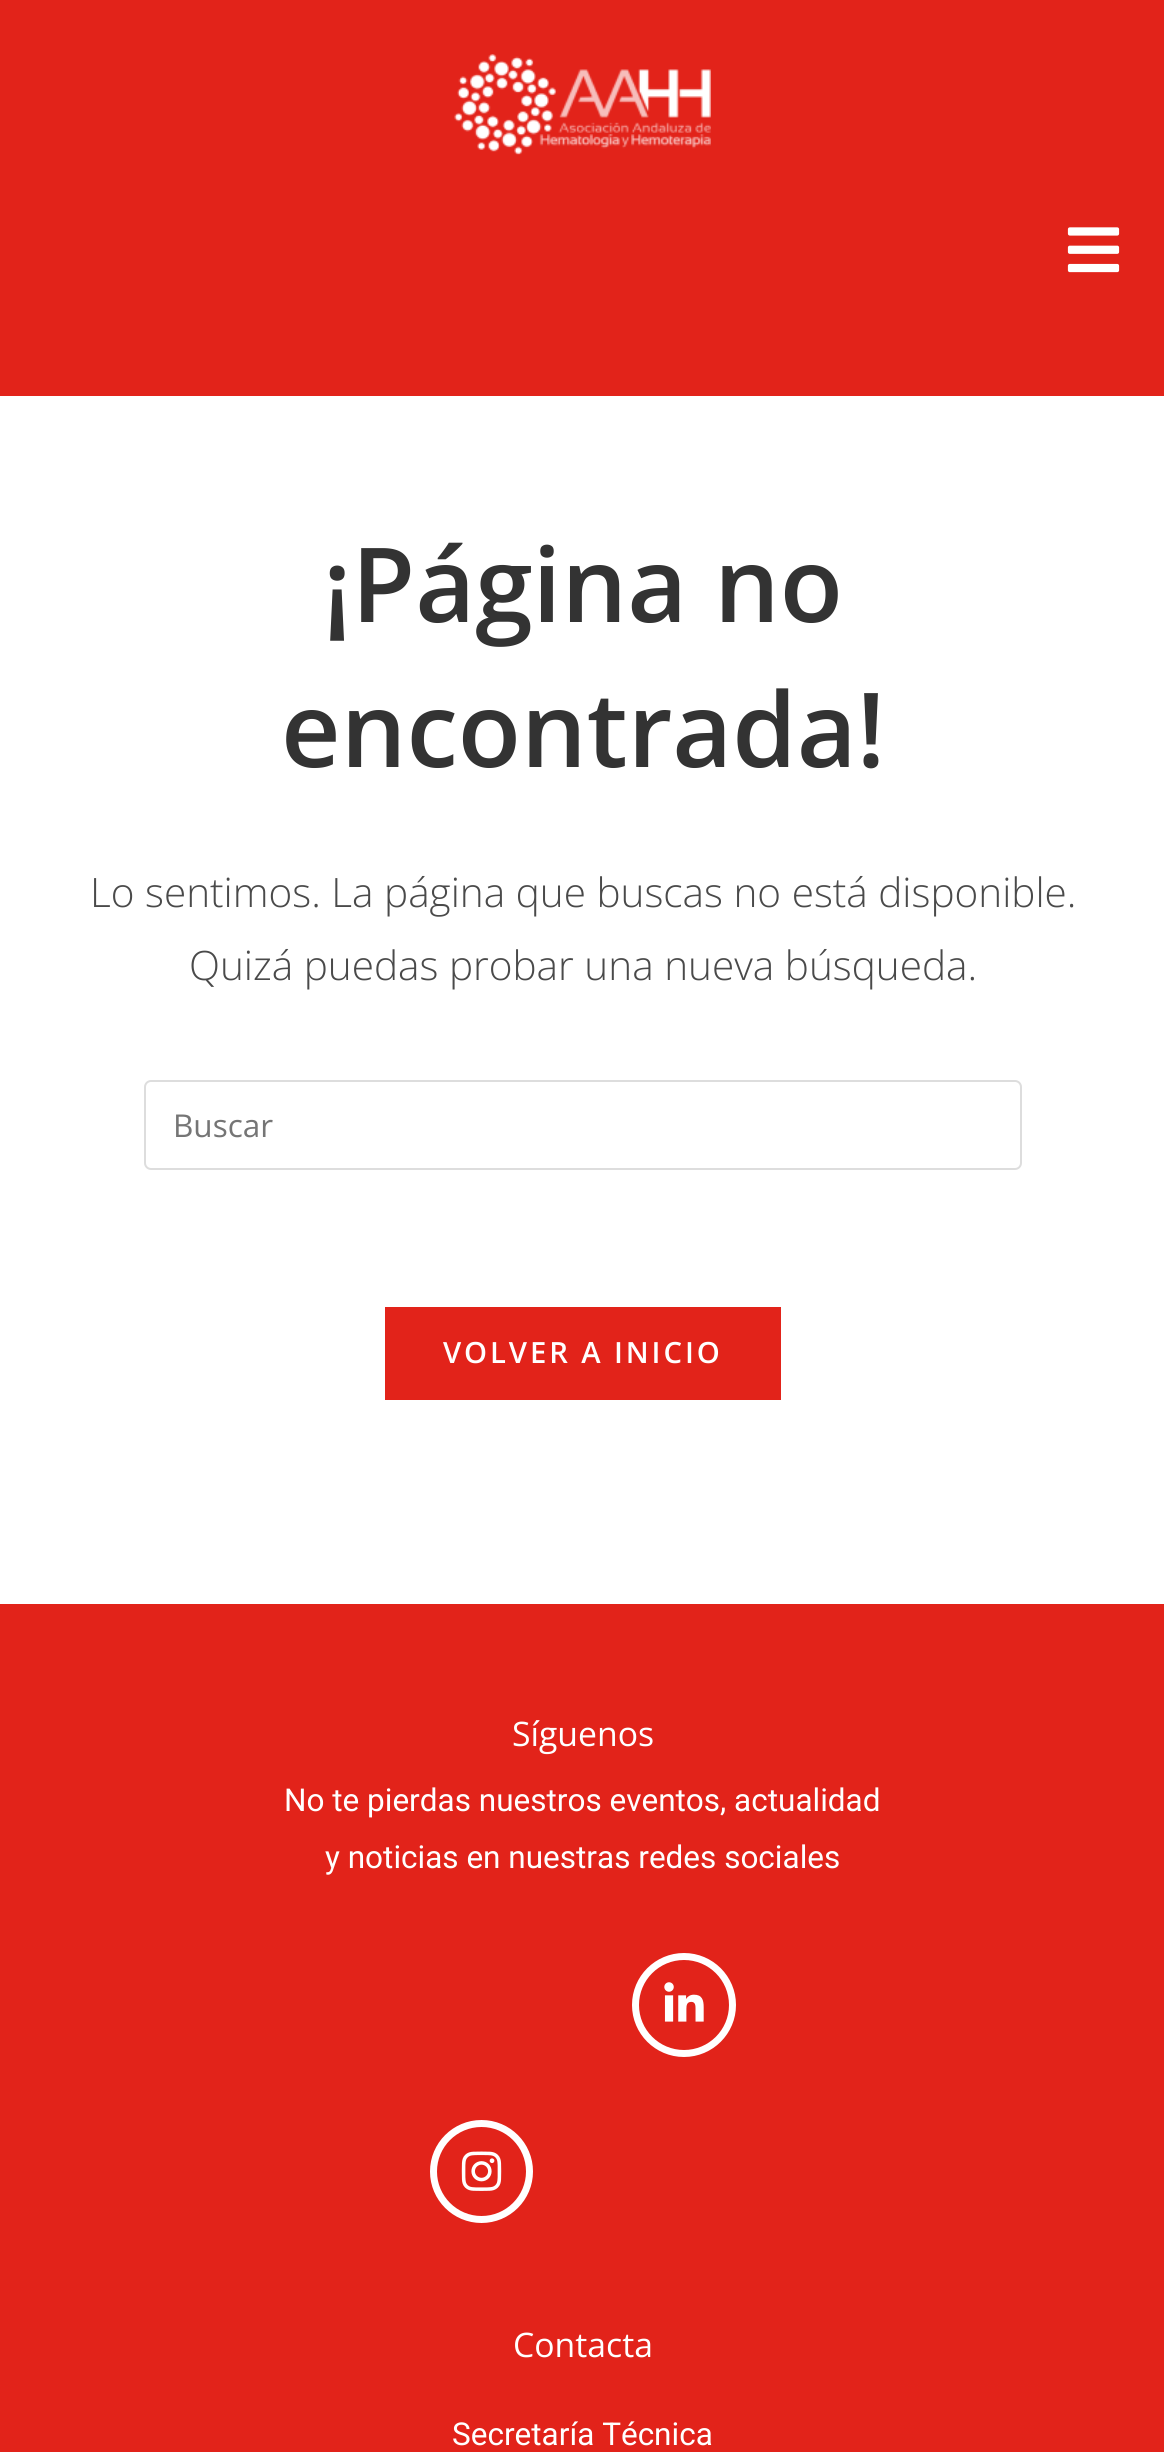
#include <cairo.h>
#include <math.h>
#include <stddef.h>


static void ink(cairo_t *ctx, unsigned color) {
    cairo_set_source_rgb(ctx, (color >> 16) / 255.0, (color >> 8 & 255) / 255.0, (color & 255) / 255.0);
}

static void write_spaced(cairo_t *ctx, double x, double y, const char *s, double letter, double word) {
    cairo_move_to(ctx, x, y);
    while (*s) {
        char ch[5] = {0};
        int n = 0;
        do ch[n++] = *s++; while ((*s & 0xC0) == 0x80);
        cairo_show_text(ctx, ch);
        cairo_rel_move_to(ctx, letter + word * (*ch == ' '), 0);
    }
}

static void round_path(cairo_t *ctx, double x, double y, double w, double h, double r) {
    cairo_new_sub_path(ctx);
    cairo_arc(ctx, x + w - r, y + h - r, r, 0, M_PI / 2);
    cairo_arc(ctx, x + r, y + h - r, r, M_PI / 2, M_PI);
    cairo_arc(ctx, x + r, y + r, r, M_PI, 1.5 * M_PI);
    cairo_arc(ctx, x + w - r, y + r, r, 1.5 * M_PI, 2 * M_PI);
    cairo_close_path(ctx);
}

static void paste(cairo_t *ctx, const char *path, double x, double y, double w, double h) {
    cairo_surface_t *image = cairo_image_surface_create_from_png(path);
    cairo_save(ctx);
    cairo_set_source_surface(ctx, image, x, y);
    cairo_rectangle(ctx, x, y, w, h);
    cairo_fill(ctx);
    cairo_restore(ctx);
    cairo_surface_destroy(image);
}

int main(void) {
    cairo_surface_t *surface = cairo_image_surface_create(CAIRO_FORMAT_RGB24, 1164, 2452);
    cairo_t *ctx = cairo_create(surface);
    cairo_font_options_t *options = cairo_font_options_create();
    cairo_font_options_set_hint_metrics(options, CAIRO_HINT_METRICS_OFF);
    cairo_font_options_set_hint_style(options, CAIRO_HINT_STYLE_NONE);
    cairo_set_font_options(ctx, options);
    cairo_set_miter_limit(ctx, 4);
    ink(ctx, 0xFFFFFF);
    cairo_paint(ctx);
    ink(ctx, 0xE2231A);
    cairo_rectangle(ctx, 0, 0, 1164, 396);
    cairo_fill(ctx);
    paste(ctx, "media/1.png", 454, 54, 257, 101);
    paste(ctx, "media/2.png", 1067, 227, 53, 46);
    cairo_select_font_face(ctx, "Open Sans SemiBold", CAIRO_FONT_SLANT_NORMAL, CAIRO_FONT_WEIGHT_NORMAL);
    cairo_set_font_size(ctx, 103.5);
    ink(ctx, 0x333333);
    cairo_move_to(ctx, 323, 622);
    cairo_show_text(ctx, "¡Página no");
    cairo_move_to(ctx, 281, 767);
    cairo_show_text(ctx, "encontrada!");
    cairo_select_font_face(ctx, "Open Sans Light", CAIRO_FONT_SLANT_NORMAL, CAIRO_FONT_WEIGHT_NORMAL);
    cairo_set_font_size(ctx, 40.5);
    ink(ctx, 0x4A4A4A);
    cairo_move_to(ctx, 90, 907);
    cairo_show_text(ctx, "Lo sentimos. La página que buscas no está disponible.");
    cairo_move_to(ctx, 189, 980);
    cairo_show_text(ctx, "Quizá puedas probar una nueva búsqueda.");
    round_path(ctx, 145, 1081, 876, 88, 6);
    ink(ctx, 0xDDDDDD);
    cairo_stroke(ctx);
    cairo_select_font_face(ctx, "Open Sans", CAIRO_FONT_SLANT_NORMAL, CAIRO_FONT_WEIGHT_NORMAL);
    cairo_set_font_size(ctx, 31.5);
    ink(ctx, 0x757575);
    cairo_move_to(ctx, 173, 1137);
    cairo_show_text(ctx, "Buscar");
    ink(ctx, 0xE2231A);
    cairo_rectangle(ctx, 385, 1307, 396, 93);
    cairo_fill(ctx);
    cairo_select_font_face(ctx, "Open Sans SemiBold", CAIRO_FONT_SLANT_NORMAL, CAIRO_FONT_WEIGHT_NORMAL);
    cairo_set_font_size(ctx, 29.25);
    ink(ctx, 0xFFFFFF);
    write_spaced(ctx, 443, 1363, "VOLVER A INICIO", 2.9, 0);
    ink(ctx, 0xE2231A);
    cairo_rectangle(ctx, 0, 1604, 1164, 848);
    cairo_fill(ctx);
    cairo_select_font_face(ctx, "Open Sans", CAIRO_FONT_SLANT_NORMAL, CAIRO_FONT_WEIGHT_NORMAL);
    cairo_set_font_size(ctx, 33.75);
    ink(ctx, 0xFFFFFF);
    cairo_move_to(ctx, 512, 1746);
    cairo_show_text(ctx, "Síguenos");
    cairo_select_font_face(ctx, "Roboto", CAIRO_FONT_SLANT_NORMAL, CAIRO_FONT_WEIGHT_NORMAL);
    cairo_set_font_size(ctx, 31.5);
    cairo_move_to(ctx, 284, 1811);
    cairo_show_text(ctx, "No te pierdas nuestros eventos, actualidad");
    cairo_move_to(ctx, 325, 1868);
    cairo_show_text(ctx, "y noticias en nuestras redes sociales");
    cairo_new_path(ctx);
    cairo_arc(ctx, 684, 2005, 48.5, 0, 2 * M_PI);
    cairo_set_line_width(ctx, 7);
    cairo_stroke(ctx);
    paste(ctx, "media/3.png", 664, 1982, 40, 40);
    cairo_arc(ctx, 481.5, 2171.5, 48, 0, 2 * M_PI);
    cairo_stroke(ctx);
    paste(ctx, "media/4.png", 461, 2151, 41, 40);
    cairo_select_font_face(ctx, "Open Sans", CAIRO_FONT_SLANT_NORMAL, CAIRO_FONT_WEIGHT_NORMAL);
    cairo_set_font_size(ctx, 33.75);
    cairo_move_to(ctx, 513, 2357);
    cairo_show_text(ctx, "Contacta");
    cairo_select_font_face(ctx, "Roboto", CAIRO_FONT_SLANT_NORMAL, CAIRO_FONT_WEIGHT_NORMAL);
    cairo_set_font_size(ctx, 31.5);
    cairo_move_to(ctx, 452, 2445);
    cairo_show_text(ctx, "Secretaría Técnica");
    cairo_surface_write_to_png(surface, "image.png");
    cairo_font_options_destroy(options);
    cairo_destroy(ctx);
    cairo_surface_destroy(surface);
    return 0;
}
